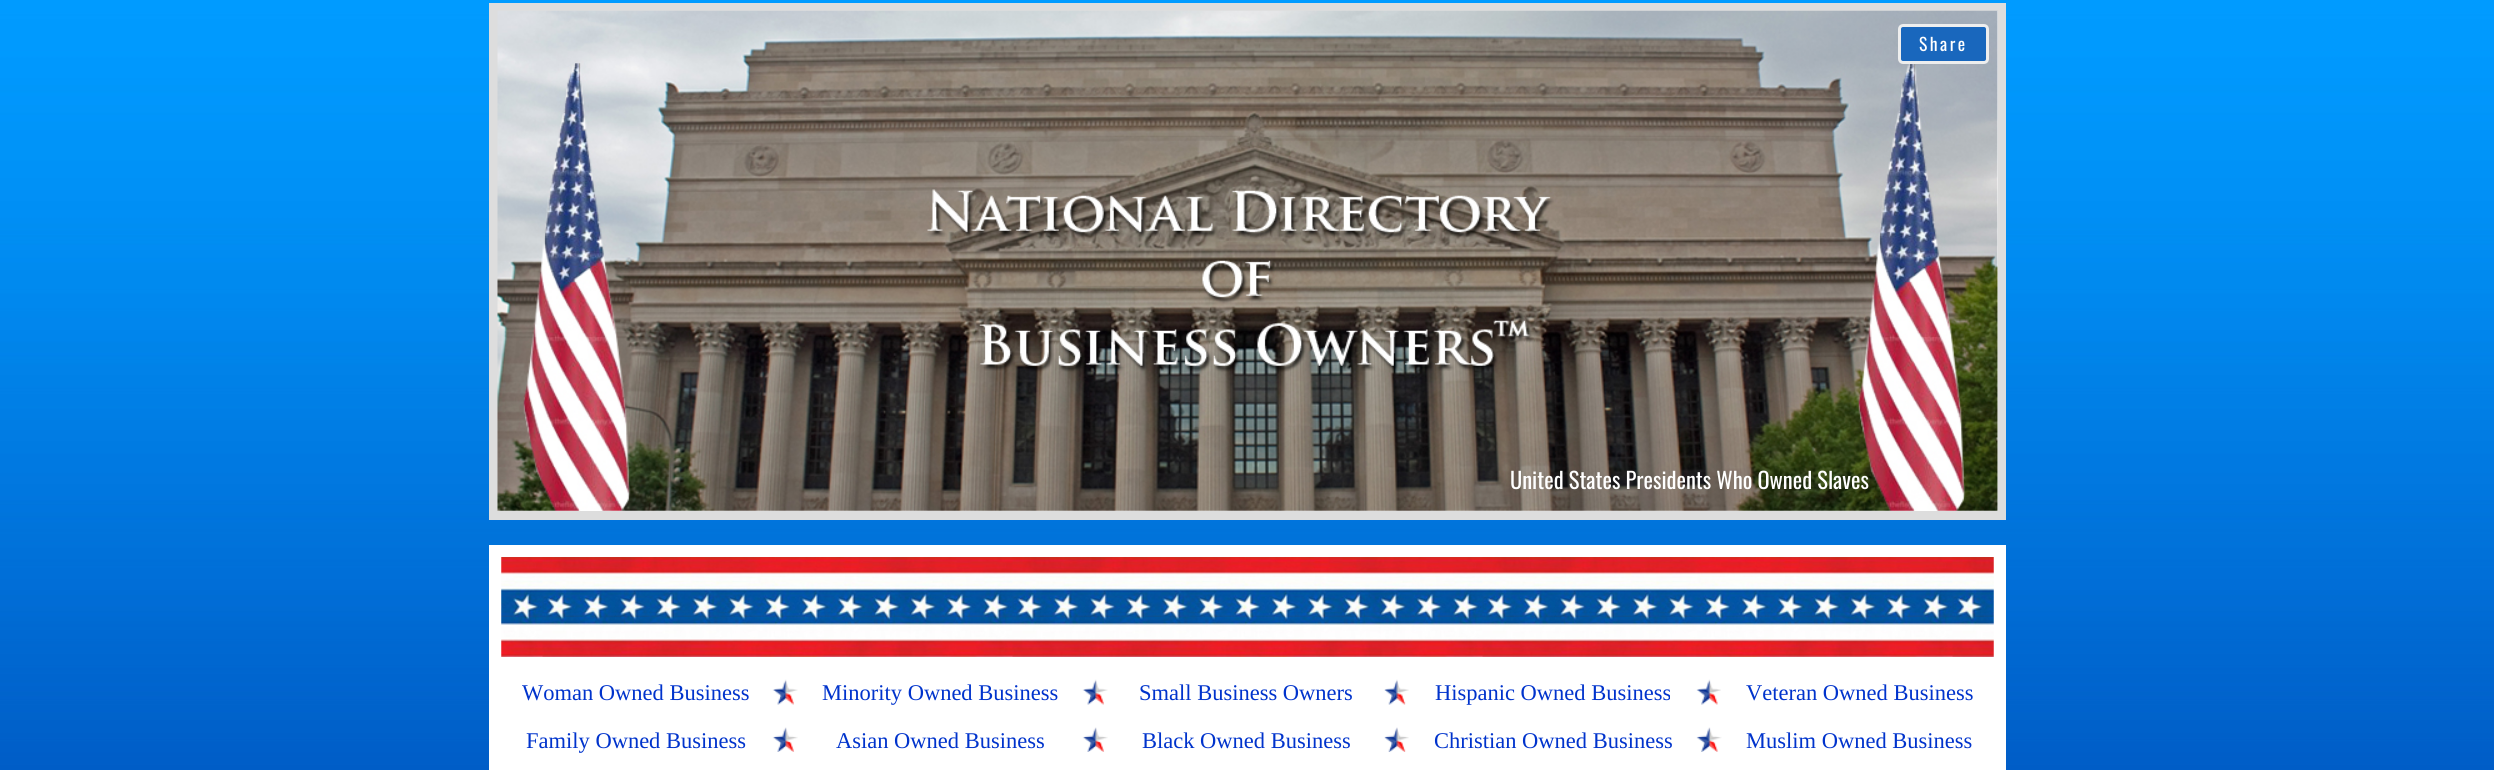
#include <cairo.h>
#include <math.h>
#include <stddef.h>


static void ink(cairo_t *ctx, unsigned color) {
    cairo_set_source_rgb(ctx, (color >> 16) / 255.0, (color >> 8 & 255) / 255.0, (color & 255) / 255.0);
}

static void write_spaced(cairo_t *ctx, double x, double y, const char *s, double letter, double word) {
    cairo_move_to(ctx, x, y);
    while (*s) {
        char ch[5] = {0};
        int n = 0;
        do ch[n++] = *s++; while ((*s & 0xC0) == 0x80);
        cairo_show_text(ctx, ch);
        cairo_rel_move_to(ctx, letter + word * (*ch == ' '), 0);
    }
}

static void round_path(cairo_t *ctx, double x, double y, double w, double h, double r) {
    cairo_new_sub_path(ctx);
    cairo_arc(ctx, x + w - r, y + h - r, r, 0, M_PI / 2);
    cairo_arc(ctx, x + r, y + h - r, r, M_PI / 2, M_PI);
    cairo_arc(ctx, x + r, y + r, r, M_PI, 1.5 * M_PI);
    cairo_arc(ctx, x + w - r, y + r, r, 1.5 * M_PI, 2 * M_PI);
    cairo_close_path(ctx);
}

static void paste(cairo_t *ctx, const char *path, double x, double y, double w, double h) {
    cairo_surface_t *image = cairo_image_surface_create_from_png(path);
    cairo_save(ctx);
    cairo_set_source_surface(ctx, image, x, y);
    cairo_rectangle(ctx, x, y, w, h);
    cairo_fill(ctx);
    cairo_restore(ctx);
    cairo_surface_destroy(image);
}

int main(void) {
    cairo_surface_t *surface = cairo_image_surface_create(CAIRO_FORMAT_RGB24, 2494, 770);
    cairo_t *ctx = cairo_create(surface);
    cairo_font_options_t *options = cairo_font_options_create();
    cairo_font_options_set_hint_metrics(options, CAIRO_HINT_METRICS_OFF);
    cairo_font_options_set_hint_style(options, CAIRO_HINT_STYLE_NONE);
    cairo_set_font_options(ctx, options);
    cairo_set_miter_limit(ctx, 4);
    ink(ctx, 0xFFFFFF);
    cairo_paint(ctx);
    paste(ctx, "media/1.png", 0, 0, 2494, 770);
    ink(ctx, 0xDDDDDD);
    cairo_rectangle(ctx, 489, 3, 1517, 517);
    cairo_fill(ctx);
    ink(ctx, 0xFFFFFF);
    cairo_rectangle(ctx, 498, 11, 1500, 500);
    cairo_fill(ctx);
    paste(ctx, "media/2.png", 497, 10, 1501, 501);
    ink(ctx, 0x1967BD);
    round_path(ctx, 1899.5, 25.5, 88, 37, 3.5);
    cairo_fill_preserve(ctx);
    ink(ctx, 0xEEEEEE);
    cairo_set_line_width(ctx, 3);
    cairo_stroke(ctx);
    cairo_select_font_face(ctx, "Oswald", CAIRO_FONT_SLANT_NORMAL, CAIRO_FONT_WEIGHT_NORMAL);
    cairo_set_font_size(ctx, 17.5);
    ink(ctx, 0xFFFFFF);
    write_spaced(ctx, 1919, 51, "Share", 2.5, 0);
    cairo_set_font_size(ctx, 22.5);
    cairo_move_to(ctx, 1510, 489);
    cairo_show_text(ctx, "United States Presidents Who Owned Slaves");
    cairo_rectangle(ctx, 489, 545, 1517, 225);
    cairo_fill(ctx);
    paste(ctx, "media/3.png", 501, 557, 1493, 100);
    cairo_select_font_face(ctx, "Liberation Serif", CAIRO_FONT_SLANT_NORMAL, CAIRO_FONT_WEIGHT_NORMAL);
    ink(ctx, 0x0033CC);
    cairo_move_to(ctx, 522, 700);
    cairo_show_text(ctx, "Woman Owned Business");
    paste(ctx, "media/4.png", 772, 679, 26, 26);
    cairo_move_to(ctx, 822, 700);
    cairo_show_text(ctx, "Minority Owned Business");
    paste(ctx, "media/4.png", 1082, 679, 26, 26);
    cairo_move_to(ctx, 1139, 700);
    cairo_show_text(ctx, "Small Business Owners");
    paste(ctx, "media/5.png", 1384, 679, 25, 26);
    cairo_move_to(ctx, 1435, 700);
    cairo_show_text(ctx, "Hispanic Owned Business");
    paste(ctx, "media/6.png", 1696, 679, 25, 26);
    cairo_move_to(ctx, 1746, 700);
    cairo_show_text(ctx, "Veteran Owned Business");
    cairo_move_to(ctx, 526, 748);
    cairo_show_text(ctx, "Family Owned Business");
    paste(ctx, "media/7.png", 772, 727, 26, 25);
    cairo_move_to(ctx, 836, 748);
    cairo_show_text(ctx, "Asian Owned Business");
    paste(ctx, "media/7.png", 1082, 727, 26, 25);
    cairo_move_to(ctx, 1142, 748);
    cairo_show_text(ctx, "Black Owned Business");
    paste(ctx, "media/8.png", 1384, 727, 25, 25);
    cairo_move_to(ctx, 1434, 748);
    cairo_show_text(ctx, "Christian Owned Business");
    paste(ctx, "media/9.png", 1696, 727, 26, 25);
    cairo_move_to(ctx, 1746, 748);
    cairo_show_text(ctx, "Muslim Owned Business");
    cairo_surface_write_to_png(surface, "image.png");
    cairo_font_options_destroy(options);
    cairo_destroy(ctx);
    cairo_surface_destroy(surface);
    return 0;
}
